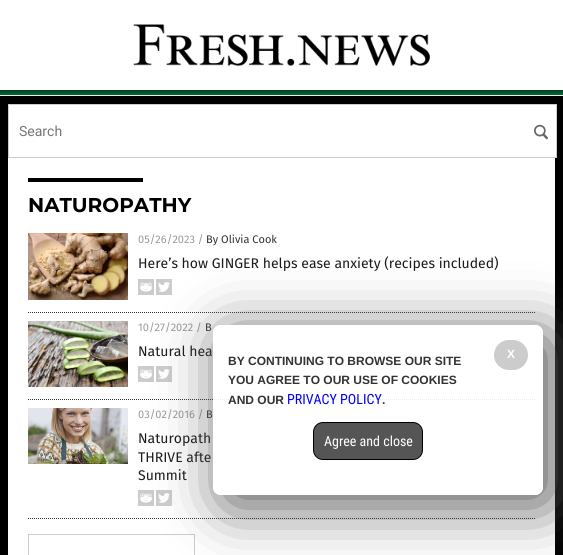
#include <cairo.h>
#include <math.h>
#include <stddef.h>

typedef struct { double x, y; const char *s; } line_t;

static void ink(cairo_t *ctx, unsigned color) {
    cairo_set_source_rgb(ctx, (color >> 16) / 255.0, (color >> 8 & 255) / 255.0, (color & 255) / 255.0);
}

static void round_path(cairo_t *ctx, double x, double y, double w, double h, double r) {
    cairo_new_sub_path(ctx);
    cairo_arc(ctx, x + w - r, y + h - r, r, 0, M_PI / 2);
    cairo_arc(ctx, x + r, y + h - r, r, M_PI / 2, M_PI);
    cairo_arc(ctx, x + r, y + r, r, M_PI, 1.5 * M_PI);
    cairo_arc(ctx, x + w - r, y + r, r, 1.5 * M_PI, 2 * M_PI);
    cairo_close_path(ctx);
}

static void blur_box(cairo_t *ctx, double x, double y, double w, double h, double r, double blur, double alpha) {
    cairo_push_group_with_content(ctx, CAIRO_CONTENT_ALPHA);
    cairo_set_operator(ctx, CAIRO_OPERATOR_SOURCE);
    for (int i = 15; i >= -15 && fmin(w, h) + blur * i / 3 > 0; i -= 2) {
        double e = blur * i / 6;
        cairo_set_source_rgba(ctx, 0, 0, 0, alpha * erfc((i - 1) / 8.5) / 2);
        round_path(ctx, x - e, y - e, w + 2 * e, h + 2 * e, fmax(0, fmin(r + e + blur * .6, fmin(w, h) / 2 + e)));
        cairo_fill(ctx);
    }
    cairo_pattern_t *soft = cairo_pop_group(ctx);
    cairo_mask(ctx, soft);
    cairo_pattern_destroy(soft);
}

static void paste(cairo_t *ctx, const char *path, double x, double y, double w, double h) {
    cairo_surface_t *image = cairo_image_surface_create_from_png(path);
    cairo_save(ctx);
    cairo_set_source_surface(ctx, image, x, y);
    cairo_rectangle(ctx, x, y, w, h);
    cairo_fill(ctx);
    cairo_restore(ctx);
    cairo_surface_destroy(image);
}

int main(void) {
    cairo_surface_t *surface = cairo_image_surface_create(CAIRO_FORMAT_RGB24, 563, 555);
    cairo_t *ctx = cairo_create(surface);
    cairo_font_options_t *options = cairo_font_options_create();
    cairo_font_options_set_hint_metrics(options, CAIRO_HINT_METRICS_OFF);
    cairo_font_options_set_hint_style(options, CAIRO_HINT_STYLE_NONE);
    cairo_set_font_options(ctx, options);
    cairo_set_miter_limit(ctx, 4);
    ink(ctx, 0x008143);
    cairo_paint(ctx);
    ink(ctx, 0x000000);
    blur_box(ctx, -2, -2, 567, 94, 0, 5, 0.75);
    ink(ctx, 0xFFFFFF);
    cairo_rectangle(ctx, 0, 0, 563, 90);
    cairo_fill(ctx);
    paste(ctx, "media/1.png", 133, 24, 297, 43);
    ink(ctx, 0x000000);
    cairo_rectangle(ctx, 0, 96, 563, 459);
    cairo_fill(ctx);
    ink(ctx, 0xECECEC);
    cairo_rectangle(ctx, 0, 95, 563, 1);
    cairo_fill(ctx);
    ink(ctx, 0xFFFFFF);
    cairo_rectangle(ctx, 8.5, 104.5, 548, 53);
    cairo_fill_preserve(ctx);
    ink(ctx, 0xCCCCCC);
    cairo_set_line_width(ctx, 1);
    cairo_stroke(ctx);
    cairo_select_font_face(ctx, "Roboto", CAIRO_FONT_SLANT_NORMAL, CAIRO_FONT_WEIGHT_NORMAL);
    cairo_set_font_size(ctx, 14);
    ink(ctx, 0x757575);
    cairo_move_to(ctx, 19, 136);
    cairo_show_text(ctx, "Search");
    paste(ctx, "media/2.png", 534, 124, 14, 16);
    ink(ctx, 0xFFFFFF);
    cairo_rectangle(ctx, 8, 158, 547, 397);
    cairo_fill(ctx);
    ink(ctx, 0x000000);
    cairo_rectangle(ctx, 28, 178, 115, 4);
    cairo_fill(ctx);
    cairo_select_font_face(ctx, "Montserrat", CAIRO_FONT_SLANT_NORMAL, CAIRO_FONT_WEIGHT_BOLD);
    cairo_set_font_size(ctx, 20);
    cairo_move_to(ctx, 28, 212);
    cairo_show_text(ctx, "NATUROPATHY");
    cairo_new_path(ctx);
    cairo_move_to(ctx, 28, 312.5);
    cairo_line_to(ctx, 535, 312.5);
    ink(ctx, 0x343434);
    cairo_set_dash(ctx, (double[]){1, 1}, 2, 0);
    cairo_stroke(ctx);
    paste(ctx, "media/3.png", 28, 233, 100, 67);
    cairo_select_font_face(ctx, "Fira Sans", CAIRO_FONT_SLANT_NORMAL, CAIRO_FONT_WEIGHT_NORMAL);
    cairo_set_font_size(ctx, 11);
    ink(ctx, 0x999999);
    cairo_move_to(ctx, 138, 243);
    cairo_show_text(ctx, "05/26/2023 /");
    ink(ctx, 0x333333);
    cairo_move_to(ctx, 206, 243);
    cairo_show_text(ctx, "By Olivia Cook");
    cairo_set_font_size(ctx, 14);
    ink(ctx, 0x1A1A1A);
    cairo_move_to(ctx, 138, 268);
    cairo_show_text(ctx, "Here’s how GINGER helps ease anxiety (recipes included)");
    paste(ctx, "media/4.png", 138, 279, 16, 16);
    paste(ctx, "media/5.png", 156, 279, 16, 16);
    cairo_new_path(ctx);
    cairo_move_to(ctx, 28, 399.5);
    cairo_line_to(ctx, 535, 399.5);
    ink(ctx, 0x343434);
    cairo_stroke(ctx);
    paste(ctx, "media/6.png", 28, 321, 100, 66);
    cairo_set_font_size(ctx, 11);
    ink(ctx, 0x999999);
    cairo_move_to(ctx, 138, 331);
    cairo_show_text(ctx, "10/27/2022 /");
    ink(ctx, 0x333333);
    cairo_move_to(ctx, 205, 331);
    cairo_show_text(ctx, "B");
    cairo_set_font_size(ctx, 14);
    ink(ctx, 0x1A1A1A);
    cairo_move_to(ctx, 138, 356);
    cairo_show_text(ctx, "Natural hea");
    paste(ctx, "media/4.png", 138, 366, 16, 16);
    paste(ctx, "media/5.png", 156, 366, 16, 16);
    cairo_new_path(ctx);
    cairo_move_to(ctx, 28, 518.5);
    cairo_line_to(ctx, 535, 518.5);
    ink(ctx, 0x343434);
    cairo_stroke(ctx);
    paste(ctx, "media/7.png", 28, 408, 100, 56);
    cairo_set_font_size(ctx, 11);
    ink(ctx, 0x999999);
    cairo_move_to(ctx, 138, 418);
    cairo_show_text(ctx, "03/02/2016 /");
    ink(ctx, 0x333333);
    cairo_move_to(ctx, 206, 418);
    cairo_show_text(ctx, "B");
    cairo_set_font_size(ctx, 14);
    ink(ctx, 0x1A1A1A);
    {
        static const line_t items[] = {
            {138, 443, "Naturopath"},
            {138, 462, "THRIVE afte"},
            {138, 480, "Summit"},
        };
        for (size_t i = 0; i < sizeof items / sizeof *items; i++) {
            cairo_move_to(ctx, items[i].x, items[i].y);
            cairo_show_text(ctx, items[i].s);
        }
    }
    paste(ctx, "media/4.png", 138, 490, 16, 16);
    paste(ctx, "media/5.png", 156, 490, 16, 16);
    cairo_rectangle(ctx, 28.5, 534.5, 166, 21);
    ink(ctx, 0xCCCCCC);
    cairo_set_dash(ctx, NULL, 0, 0);
    cairo_stroke(ctx);
    cairo_save(ctx);
    cairo_set_fill_rule(ctx, CAIRO_FILL_RULE_EVEN_ODD);
    cairo_new_path(ctx);
    cairo_move_to(ctx, 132, 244);
    cairo_line_to(ctx, 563, 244);
    cairo_line_to(ctx, 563, 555);
    cairo_line_to(ctx, 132, 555);
    cairo_close_path(ctx);
    cairo_move_to(ctx, 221, 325);
    cairo_line_to(ctx, 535, 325);
    cairo_curve_to(ctx, 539.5, 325, 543, 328.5, 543, 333);
    cairo_line_to(ctx, 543, 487);
    cairo_curve_to(ctx, 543, 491.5, 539.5, 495, 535, 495);
    cairo_line_to(ctx, 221, 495);
    cairo_curve_to(ctx, 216.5, 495, 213, 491.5, 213, 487);
    cairo_line_to(ctx, 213, 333);
    cairo_curve_to(ctx, 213, 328.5, 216.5, 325, 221, 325);
    cairo_close_path(ctx);
    cairo_clip(ctx);
    ink(ctx, 0x555555);
    blur_box(ctx, 223, 335, 330, 170, 8, 30, 1);
    cairo_restore(ctx);
    cairo_set_source_rgba(ctx, 1, 1, 1, 0.9);
    round_path(ctx, 213, 325, 330, 170, 8);
    cairo_fill(ctx);
    ink(ctx, 0xCCCCCC);
    round_path(ctx, 494, 340, 34, 30, 15);
    cairo_fill(ctx);
    cairo_select_font_face(ctx, "Liberation Sans", CAIRO_FONT_SLANT_NORMAL, CAIRO_FONT_WEIGHT_BOLD);
    cairo_set_font_size(ctx, 12);
    ink(ctx, 0xFFFFFF);
    cairo_move_to(ctx, 507, 358);
    cairo_show_text(ctx, "X");
    ink(ctx, 0x333333);
    {
        static const line_t items[] = {
            {228, 365, "BY CONTINUING TO BROWSE OUR SITE"},
            {228, 384, "YOU AGREE TO OUR USE OF COOKIES"},
            {228, 404, "AND OUR"},
        };
        for (size_t i = 0; i < sizeof items / sizeof *items; i++) {
            cairo_move_to(ctx, items[i].x, items[i].y);
            cairo_show_text(ctx, items[i].s);
        }
    }
    cairo_select_font_face(ctx, "Roboto Condensed", CAIRO_FONT_SLANT_NORMAL, CAIRO_FONT_WEIGHT_NORMAL);
    cairo_set_font_size(ctx, 14);
    ink(ctx, 0x0000FF);
    cairo_move_to(ctx, 287, 404);
    cairo_show_text(ctx, "PRIVACY POLICY");
    cairo_select_font_face(ctx, "Liberation Sans", CAIRO_FONT_SLANT_NORMAL, CAIRO_FONT_WEIGHT_BOLD);
    cairo_set_font_size(ctx, 12);
    ink(ctx, 0x333333);
    cairo_move_to(ctx, 382, 404);
    cairo_show_text(ctx, ".");
    ink(ctx, 0x555555);
    round_path(ctx, 313.5, 422.5, 109, 37, 9.5);
    cairo_fill_preserve(ctx);
    ink(ctx, 0x000000);
    cairo_stroke(ctx);
    cairo_select_font_face(ctx, "Roboto Condensed", CAIRO_FONT_SLANT_NORMAL, CAIRO_FONT_WEIGHT_NORMAL);
    cairo_set_font_size(ctx, 14);
    ink(ctx, 0xFFFFFF);
    cairo_move_to(ctx, 324, 446);
    cairo_show_text(ctx, "Agree and close");
    cairo_surface_write_to_png(surface, "image.png");
    cairo_font_options_destroy(options);
    cairo_destroy(ctx);
    cairo_surface_destroy(surface);
    return 0;
}
